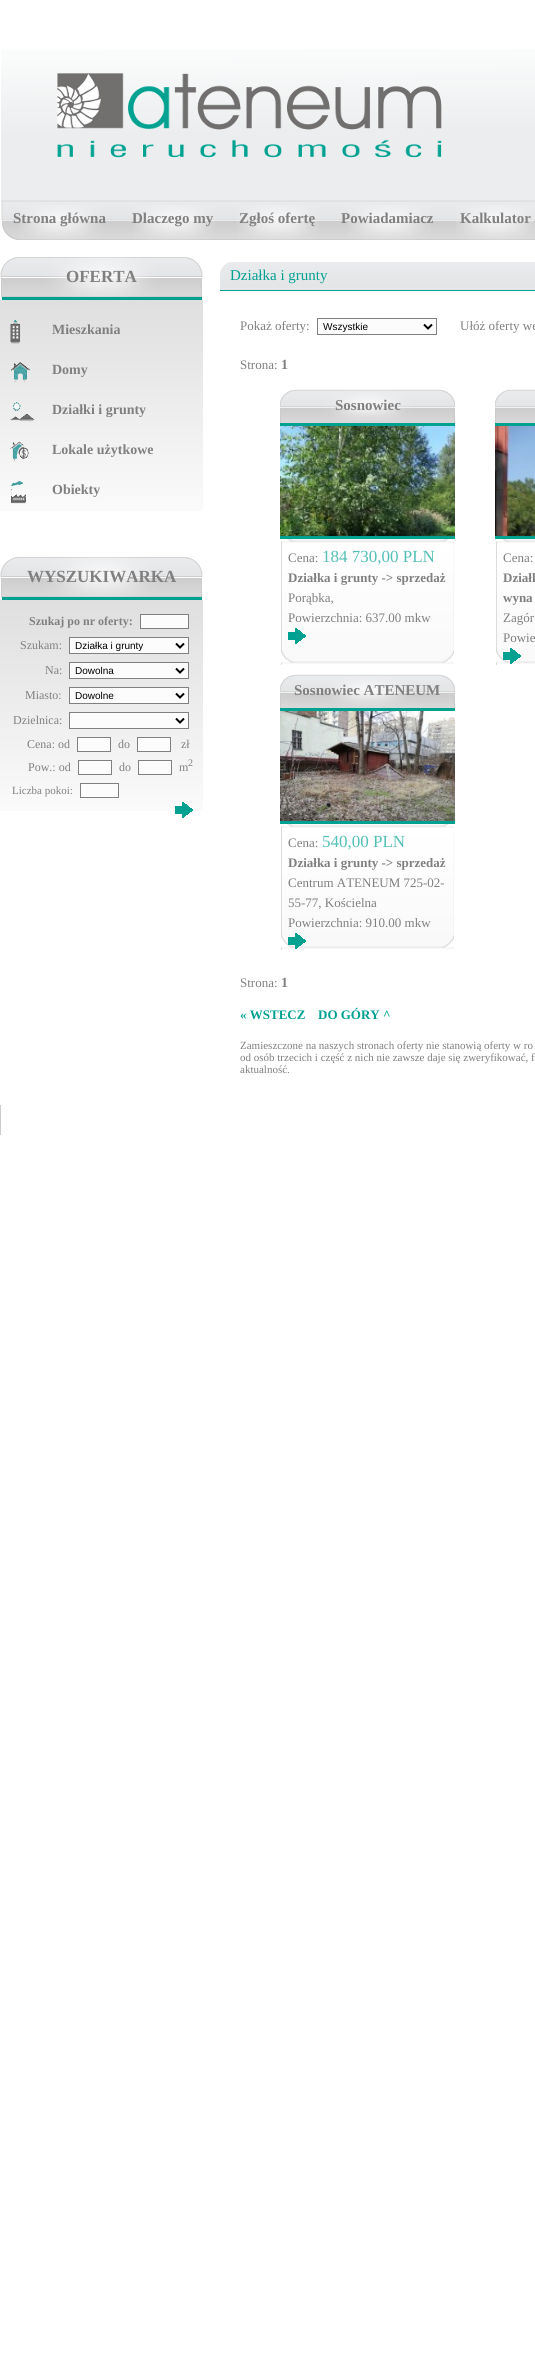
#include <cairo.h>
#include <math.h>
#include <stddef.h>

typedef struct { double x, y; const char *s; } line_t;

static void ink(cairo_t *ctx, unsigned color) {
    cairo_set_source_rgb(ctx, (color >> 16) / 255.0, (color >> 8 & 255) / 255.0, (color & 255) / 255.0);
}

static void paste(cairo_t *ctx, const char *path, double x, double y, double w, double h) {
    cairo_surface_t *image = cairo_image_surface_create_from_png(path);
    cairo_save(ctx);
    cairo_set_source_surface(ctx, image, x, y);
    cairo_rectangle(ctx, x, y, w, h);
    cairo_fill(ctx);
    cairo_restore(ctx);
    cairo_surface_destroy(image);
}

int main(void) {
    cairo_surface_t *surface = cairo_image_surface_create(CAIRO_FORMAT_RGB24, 535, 2359);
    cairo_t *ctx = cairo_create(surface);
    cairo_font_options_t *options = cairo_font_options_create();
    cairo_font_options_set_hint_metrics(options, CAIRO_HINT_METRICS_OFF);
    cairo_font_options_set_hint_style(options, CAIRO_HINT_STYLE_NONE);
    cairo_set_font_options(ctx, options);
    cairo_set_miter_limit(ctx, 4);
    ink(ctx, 0xFFFFFF);
    cairo_paint(ctx);
    paste(ctx, "media/1.png", 1, 49, 534, 191);
    paste(ctx, "media/2.png", 57, 73, 385, 85);
    paste(ctx, "media/3.png", 19, 205, 82, 35);
    cairo_select_font_face(ctx, "Liberation Serif", CAIRO_FONT_SLANT_NORMAL, CAIRO_FONT_WEIGHT_BOLD);
    cairo_set_font_size(ctx, 15);
    ink(ctx, 0x808080);
    cairo_move_to(ctx, 13, 223);
    cairo_show_text(ctx, "Strona główna");
    paste(ctx, "media/4.png", 133, 205, 82, 35);
    cairo_move_to(ctx, 132, 223);
    cairo_show_text(ctx, "Dlaczego my");
    paste(ctx, "media/4.png", 237, 205, 82, 35);
    cairo_move_to(ctx, 239, 223);
    cairo_show_text(ctx, "Zgłoś ofertę");
    paste(ctx, "media/4.png", 348, 205, 82, 35);
    cairo_move_to(ctx, 341, 223);
    cairo_show_text(ctx, "Powiadamiacz");
    paste(ctx, "media/5.png", 456, 205, 79, 35);
    cairo_move_to(ctx, 460, 223);
    cairo_show_text(ctx, "Kalkulator");
    paste(ctx, "media/6.png", 0, 257, 203, 43);
    cairo_set_font_size(ctx, 17);
    cairo_move_to(ctx, 66, 282);
    cairo_show_text(ctx, "OFERTA");
    paste(ctx, "media/7.png", 0, 300, 203, 211);
    paste(ctx, "media/8.png", 10, 319, 11, 25);
    cairo_set_font_size(ctx, 14);
    cairo_move_to(ctx, 52, 334);
    cairo_show_text(ctx, "Mieszkania");
    paste(ctx, "media/9.png", 11, 362, 19, 21);
    cairo_move_to(ctx, 52, 374);
    cairo_show_text(ctx, "Domy");
    paste(ctx, "media/10.png", 10, 402, 25, 20);
    cairo_move_to(ctx, 52, 414);
    cairo_show_text(ctx, "Działki i grunty");
    paste(ctx, "media/11.png", 10, 441, 19, 21);
    cairo_move_to(ctx, 52, 454);
    cairo_show_text(ctx, "Lokale użytkowe");
    paste(ctx, "media/12.png", 10, 481, 16, 23);
    cairo_move_to(ctx, 52, 494);
    cairo_show_text(ctx, "Obiekty");
    paste(ctx, "media/6.png", 0, 557, 203, 43);
    cairo_set_font_size(ctx, 17);
    cairo_move_to(ctx, 27, 582);
    cairo_show_text(ctx, "WYSZUKIWARKA");
    paste(ctx, "media/7.png", 0, 600, 203, 211);
    cairo_set_font_size(ctx, 12);
    cairo_move_to(ctx, 29, 625);
    cairo_show_text(ctx, "Szukaj po nr oferty:");
    ink(ctx, 0xFCFCFC);
    cairo_rectangle(ctx, 140.5, 614.5, 48, 14);
    cairo_fill_preserve(ctx);
    ink(ctx, 0x808080);
    cairo_set_line_width(ctx, 1);
    cairo_stroke(ctx);
    cairo_select_font_face(ctx, "Liberation Serif", CAIRO_FONT_SLANT_NORMAL, CAIRO_FONT_WEIGHT_NORMAL);
    cairo_move_to(ctx, 20, 649);
    cairo_show_text(ctx, "Szukam:");
    ink(ctx, 0xFCFCFC);
    cairo_rectangle(ctx, 69.5, 637.5, 119, 16);
    cairo_fill_preserve(ctx);
    ink(ctx, 0x808080);
    cairo_stroke(ctx);
    cairo_new_path(ctx);
    cairo_move_to(ctx, 176, 643.5);
    cairo_line_to(ctx, 180, 647.5);
    cairo_line_to(ctx, 184, 643.5);
    ink(ctx, 0x000000);
    cairo_set_line_width(ctx, 2);
    cairo_stroke(ctx);
    cairo_select_font_face(ctx, "Liberation Sans", CAIRO_FONT_SLANT_NORMAL, CAIRO_FONT_WEIGHT_NORMAL);
    cairo_set_font_size(ctx, 10);
    cairo_move_to(ctx, 75, 649);
    cairo_show_text(ctx, "Działka i grunty");
    cairo_select_font_face(ctx, "Liberation Serif", CAIRO_FONT_SLANT_NORMAL, CAIRO_FONT_WEIGHT_NORMAL);
    cairo_set_font_size(ctx, 12);
    ink(ctx, 0x808080);
    cairo_move_to(ctx, 45, 674);
    cairo_show_text(ctx, "Na:");
    ink(ctx, 0xFCFCFC);
    cairo_rectangle(ctx, 69.5, 662.5, 119, 16);
    cairo_fill_preserve(ctx);
    ink(ctx, 0x808080);
    cairo_set_line_width(ctx, 1);
    cairo_stroke(ctx);
    cairo_new_path(ctx);
    cairo_move_to(ctx, 176, 668.5);
    cairo_line_to(ctx, 180, 672.5);
    cairo_line_to(ctx, 184, 668.5);
    ink(ctx, 0x000000);
    cairo_set_line_width(ctx, 2);
    cairo_stroke(ctx);
    cairo_select_font_face(ctx, "Liberation Sans", CAIRO_FONT_SLANT_NORMAL, CAIRO_FONT_WEIGHT_NORMAL);
    cairo_set_font_size(ctx, 10);
    cairo_move_to(ctx, 75, 674);
    cairo_show_text(ctx, "Dowolna");
    cairo_select_font_face(ctx, "Liberation Serif", CAIRO_FONT_SLANT_NORMAL, CAIRO_FONT_WEIGHT_NORMAL);
    cairo_set_font_size(ctx, 12);
    ink(ctx, 0x808080);
    cairo_move_to(ctx, 25, 699);
    cairo_show_text(ctx, "Miasto:");
    ink(ctx, 0xFCFCFC);
    cairo_rectangle(ctx, 69.5, 687.5, 119, 16);
    cairo_fill_preserve(ctx);
    ink(ctx, 0x808080);
    cairo_set_line_width(ctx, 1);
    cairo_stroke(ctx);
    cairo_new_path(ctx);
    cairo_move_to(ctx, 176, 693.5);
    cairo_line_to(ctx, 180, 697.5);
    cairo_line_to(ctx, 184, 693.5);
    ink(ctx, 0x000000);
    cairo_set_line_width(ctx, 2);
    cairo_stroke(ctx);
    cairo_select_font_face(ctx, "Liberation Sans", CAIRO_FONT_SLANT_NORMAL, CAIRO_FONT_WEIGHT_NORMAL);
    cairo_set_font_size(ctx, 10);
    cairo_move_to(ctx, 75, 699);
    cairo_show_text(ctx, "Dowolne");
    cairo_select_font_face(ctx, "Liberation Serif", CAIRO_FONT_SLANT_NORMAL, CAIRO_FONT_WEIGHT_NORMAL);
    cairo_set_font_size(ctx, 12);
    ink(ctx, 0x808080);
    cairo_move_to(ctx, 13, 724);
    cairo_show_text(ctx, "Dzielnica:");
    ink(ctx, 0xFCFCFC);
    cairo_rectangle(ctx, 69.5, 712.5, 119, 16);
    cairo_fill_preserve(ctx);
    ink(ctx, 0x808080);
    cairo_set_line_width(ctx, 1);
    cairo_stroke(ctx);
    cairo_new_path(ctx);
    cairo_move_to(ctx, 176, 718.5);
    cairo_line_to(ctx, 180, 722.5);
    cairo_line_to(ctx, 184, 718.5);
    ink(ctx, 0x000000);
    cairo_set_line_width(ctx, 2);
    cairo_stroke(ctx);
    ink(ctx, 0x808080);
    cairo_move_to(ctx, 27, 748);
    cairo_show_text(ctx, "Cena: od");
    ink(ctx, 0xFCFCFC);
    cairo_rectangle(ctx, 77.5, 737.5, 33, 14);
    cairo_fill_preserve(ctx);
    ink(ctx, 0x808080);
    cairo_set_line_width(ctx, 1);
    cairo_stroke(ctx);
    cairo_move_to(ctx, 118, 748);
    cairo_show_text(ctx, "do");
    ink(ctx, 0xFCFCFC);
    cairo_rectangle(ctx, 137.5, 737.5, 33, 14);
    cairo_fill_preserve(ctx);
    ink(ctx, 0x808080);
    cairo_stroke(ctx);
    cairo_move_to(ctx, 181, 748);
    cairo_show_text(ctx, "zł");
    cairo_move_to(ctx, 28, 771);
    cairo_show_text(ctx, "Pow.: od");
    ink(ctx, 0xFCFCFC);
    cairo_rectangle(ctx, 78.5, 760.5, 33, 14);
    cairo_fill_preserve(ctx);
    ink(ctx, 0x808080);
    cairo_stroke(ctx);
    cairo_move_to(ctx, 119, 771);
    cairo_show_text(ctx, "do");
    ink(ctx, 0xFCFCFC);
    cairo_rectangle(ctx, 138.5, 760.5, 33, 14);
    cairo_fill_preserve(ctx);
    ink(ctx, 0x808080);
    cairo_stroke(ctx);
    cairo_move_to(ctx, 179, 771);
    cairo_show_text(ctx, "m");
    cairo_set_font_size(ctx, 10);
    cairo_move_to(ctx, 188, 766);
    cairo_show_text(ctx, "2");
    cairo_set_font_size(ctx, 11);
    cairo_move_to(ctx, 12, 794);
    cairo_show_text(ctx, "Liczba pokoi:");
    ink(ctx, 0xFCFCFC);
    cairo_rectangle(ctx, 80.5, 783.5, 38, 14);
    cairo_fill_preserve(ctx);
    ink(ctx, 0x808080);
    cairo_stroke(ctx);
    paste(ctx, "media/13.png", 175, 802, 18, 16);
    paste(ctx, "media/14.png", 220, 262, 315, 28);
    cairo_set_font_size(ctx, 15);
    ink(ctx, 0x00A191);
    cairo_move_to(ctx, 230, 280);
    cairo_show_text(ctx, "Działka i grunty");
    cairo_rectangle(ctx, 220, 290, 315, 1);
    cairo_fill(ctx);
    cairo_set_font_size(ctx, 13);
    ink(ctx, 0x808080);
    cairo_move_to(ctx, 240, 330);
    cairo_show_text(ctx, "Pokaż oferty:");
    ink(ctx, 0xFCFCFC);
    cairo_rectangle(ctx, 317.5, 318.5, 119, 16);
    cairo_fill_preserve(ctx);
    ink(ctx, 0x808080);
    cairo_stroke(ctx);
    cairo_new_path(ctx);
    cairo_move_to(ctx, 424, 324.5);
    cairo_line_to(ctx, 428, 328.5);
    cairo_line_to(ctx, 432, 324.5);
    ink(ctx, 0x000000);
    cairo_set_line_width(ctx, 2);
    cairo_stroke(ctx);
    cairo_select_font_face(ctx, "Liberation Sans", CAIRO_FONT_SLANT_NORMAL, CAIRO_FONT_WEIGHT_NORMAL);
    cairo_set_font_size(ctx, 10);
    cairo_move_to(ctx, 323, 330);
    cairo_show_text(ctx, "Wszystkie");
    cairo_select_font_face(ctx, "Liberation Serif", CAIRO_FONT_SLANT_NORMAL, CAIRO_FONT_WEIGHT_NORMAL);
    cairo_set_font_size(ctx, 13);
    ink(ctx, 0x808080);
    cairo_move_to(ctx, 460, 330);
    cairo_show_text(ctx, "Ułóż oferty we");
    cairo_move_to(ctx, 240, 369);
    cairo_show_text(ctx, "Strona:");
    cairo_select_font_face(ctx, "Liberation Serif", CAIRO_FONT_SLANT_NORMAL, CAIRO_FONT_WEIGHT_BOLD);
    cairo_set_font_size(ctx, 14);
    cairo_move_to(ctx, 281, 369);
    cairo_show_text(ctx, "1");
    paste(ctx, "media/15.png", 280, 389, 175, 34);
    ink(ctx, 0x00A191);
    cairo_rectangle(ctx, 280, 423, 175, 3);
    cairo_fill(ctx);
    cairo_set_font_size(ctx, 15);
    ink(ctx, 0x808080);
    cairo_move_to(ctx, 335, 410);
    cairo_show_text(ctx, "Sosnowiec");
    paste(ctx, "media/16.png", 280, 426, 175, 110);
    paste(ctx, "media/17.png", 281, 539, 173, 126);
    ink(ctx, 0x00A191);
    cairo_rectangle(ctx, 280, 536, 175, 3);
    cairo_fill(ctx);
    cairo_select_font_face(ctx, "Liberation Serif", CAIRO_FONT_SLANT_NORMAL, CAIRO_FONT_WEIGHT_NORMAL);
    cairo_set_font_size(ctx, 13);
    ink(ctx, 0x808080);
    cairo_move_to(ctx, 288, 562);
    cairo_show_text(ctx, "Cena:");
    cairo_set_font_size(ctx, 17);
    ink(ctx, 0x54BFB7);
    cairo_move_to(ctx, 322, 562);
    cairo_show_text(ctx, "184 730,00 PLN");
    cairo_select_font_face(ctx, "Liberation Serif", CAIRO_FONT_SLANT_NORMAL, CAIRO_FONT_WEIGHT_BOLD);
    cairo_set_font_size(ctx, 13);
    ink(ctx, 0x808080);
    cairo_move_to(ctx, 288, 582);
    cairo_show_text(ctx, "Działka i grunty -> sprzedaż");
    cairo_select_font_face(ctx, "Liberation Serif", CAIRO_FONT_SLANT_NORMAL, CAIRO_FONT_WEIGHT_NORMAL);
    cairo_move_to(ctx, 288, 602);
    cairo_show_text(ctx, "Porąbka,");
    cairo_move_to(ctx, 288, 622);
    cairo_show_text(ctx, "Powierzchnia: 637.00 mkw");
    paste(ctx, "media/18.png", 288, 628, 18, 16);
    paste(ctx, "media/19.png", 495, 389, 40, 34);
    ink(ctx, 0x00A191);
    cairo_rectangle(ctx, 495, 423, 40, 3);
    cairo_fill(ctx);
    paste(ctx, "media/20.png", 495, 426, 40, 110);
    paste(ctx, "media/21.png", 496, 539, 39, 126);
    cairo_rectangle(ctx, 495, 536, 40, 3);
    cairo_fill(ctx);
    ink(ctx, 0x808080);
    cairo_move_to(ctx, 503, 562);
    cairo_show_text(ctx, "Cena:");
    cairo_select_font_face(ctx, "Liberation Serif", CAIRO_FONT_SLANT_NORMAL, CAIRO_FONT_WEIGHT_BOLD);
    cairo_move_to(ctx, 503, 582);
    cairo_show_text(ctx, "Działk");
    cairo_move_to(ctx, 503, 602);
    cairo_show_text(ctx, "wyna");
    cairo_select_font_face(ctx, "Liberation Serif", CAIRO_FONT_SLANT_NORMAL, CAIRO_FONT_WEIGHT_NORMAL);
    cairo_move_to(ctx, 503, 622);
    cairo_show_text(ctx, "Zagór");
    cairo_move_to(ctx, 503, 642);
    cairo_show_text(ctx, "Powie");
    paste(ctx, "media/22.png", 503, 648, 18, 16);
    paste(ctx, "media/15.png", 280, 674, 175, 34);
    ink(ctx, 0x00A191);
    cairo_rectangle(ctx, 280, 708, 175, 3);
    cairo_fill(ctx);
    cairo_select_font_face(ctx, "Liberation Serif", CAIRO_FONT_SLANT_NORMAL, CAIRO_FONT_WEIGHT_BOLD);
    cairo_set_font_size(ctx, 15);
    ink(ctx, 0x808080);
    cairo_move_to(ctx, 294, 695);
    cairo_show_text(ctx, "Sosnowiec ATENEUM");
    paste(ctx, "media/23.png", 280, 711, 175, 110);
    paste(ctx, "media/17.png", 281, 824, 173, 126);
    ink(ctx, 0x00A191);
    cairo_rectangle(ctx, 280, 821, 175, 3);
    cairo_fill(ctx);
    cairo_select_font_face(ctx, "Liberation Serif", CAIRO_FONT_SLANT_NORMAL, CAIRO_FONT_WEIGHT_NORMAL);
    cairo_set_font_size(ctx, 13);
    ink(ctx, 0x808080);
    cairo_move_to(ctx, 288, 847);
    cairo_show_text(ctx, "Cena:");
    cairo_set_font_size(ctx, 17);
    ink(ctx, 0x54BFB7);
    cairo_move_to(ctx, 322, 847);
    cairo_show_text(ctx, "540,00 PLN");
    cairo_select_font_face(ctx, "Liberation Serif", CAIRO_FONT_SLANT_NORMAL, CAIRO_FONT_WEIGHT_BOLD);
    cairo_set_font_size(ctx, 13);
    ink(ctx, 0x808080);
    cairo_move_to(ctx, 288, 867);
    cairo_show_text(ctx, "Działka i grunty -> sprzedaż");
    cairo_select_font_face(ctx, "Liberation Serif", CAIRO_FONT_SLANT_NORMAL, CAIRO_FONT_WEIGHT_NORMAL);
    {
        static const line_t items[] = {
            {288, 887, "Centrum ATENEUM 725-02-"},
            {288, 907, "55-77, Kościelna"},
            {288, 927, "Powierzchnia: 910.00 mkw"},
        };
        for (size_t i = 0; i < sizeof items / sizeof *items; i++) {
            cairo_move_to(ctx, items[i].x, items[i].y);
            cairo_show_text(ctx, items[i].s);
        }
    }
    paste(ctx, "media/22.png", 288, 933, 18, 16);
    cairo_move_to(ctx, 240, 987);
    cairo_show_text(ctx, "Strona:");
    cairo_select_font_face(ctx, "Liberation Serif", CAIRO_FONT_SLANT_NORMAL, CAIRO_FONT_WEIGHT_BOLD);
    cairo_set_font_size(ctx, 14);
    cairo_move_to(ctx, 281, 987);
    cairo_show_text(ctx, "1");
    cairo_set_font_size(ctx, 13);
    ink(ctx, 0x00A191);
    cairo_move_to(ctx, 240, 1019);
    cairo_show_text(ctx, "« WSTECZ");
    cairo_move_to(ctx, 318, 1019);
    cairo_show_text(ctx, "DO GÓRY ^");
    cairo_select_font_face(ctx, "Liberation Serif", CAIRO_FONT_SLANT_NORMAL, CAIRO_FONT_WEIGHT_NORMAL);
    cairo_set_font_size(ctx, 11);
    ink(ctx, 0x808080);
    {
        static const line_t items[] = {
            {240, 1049, "Zamieszczone na naszych stronach oferty nie stanowią oferty w ro"},
            {240, 1061, "od osób trzecich i część z nich nie zawsze daje się zweryfikować, f"},
            {240, 1073, "aktualność."},
        };
        for (size_t i = 0; i < sizeof items / sizeof *items; i++) {
            cairo_move_to(ctx, items[i].x, items[i].y);
            cairo_show_text(ctx, items[i].s);
        }
    }
    ink(ctx, 0xCCCCCC);
    cairo_rectangle(ctx, 0, 1105, 1, 30);
    cairo_fill(ctx);
    cairo_surface_write_to_png(surface, "image.png");
    cairo_font_options_destroy(options);
    cairo_destroy(ctx);
    cairo_surface_destroy(surface);
    return 0;
}
